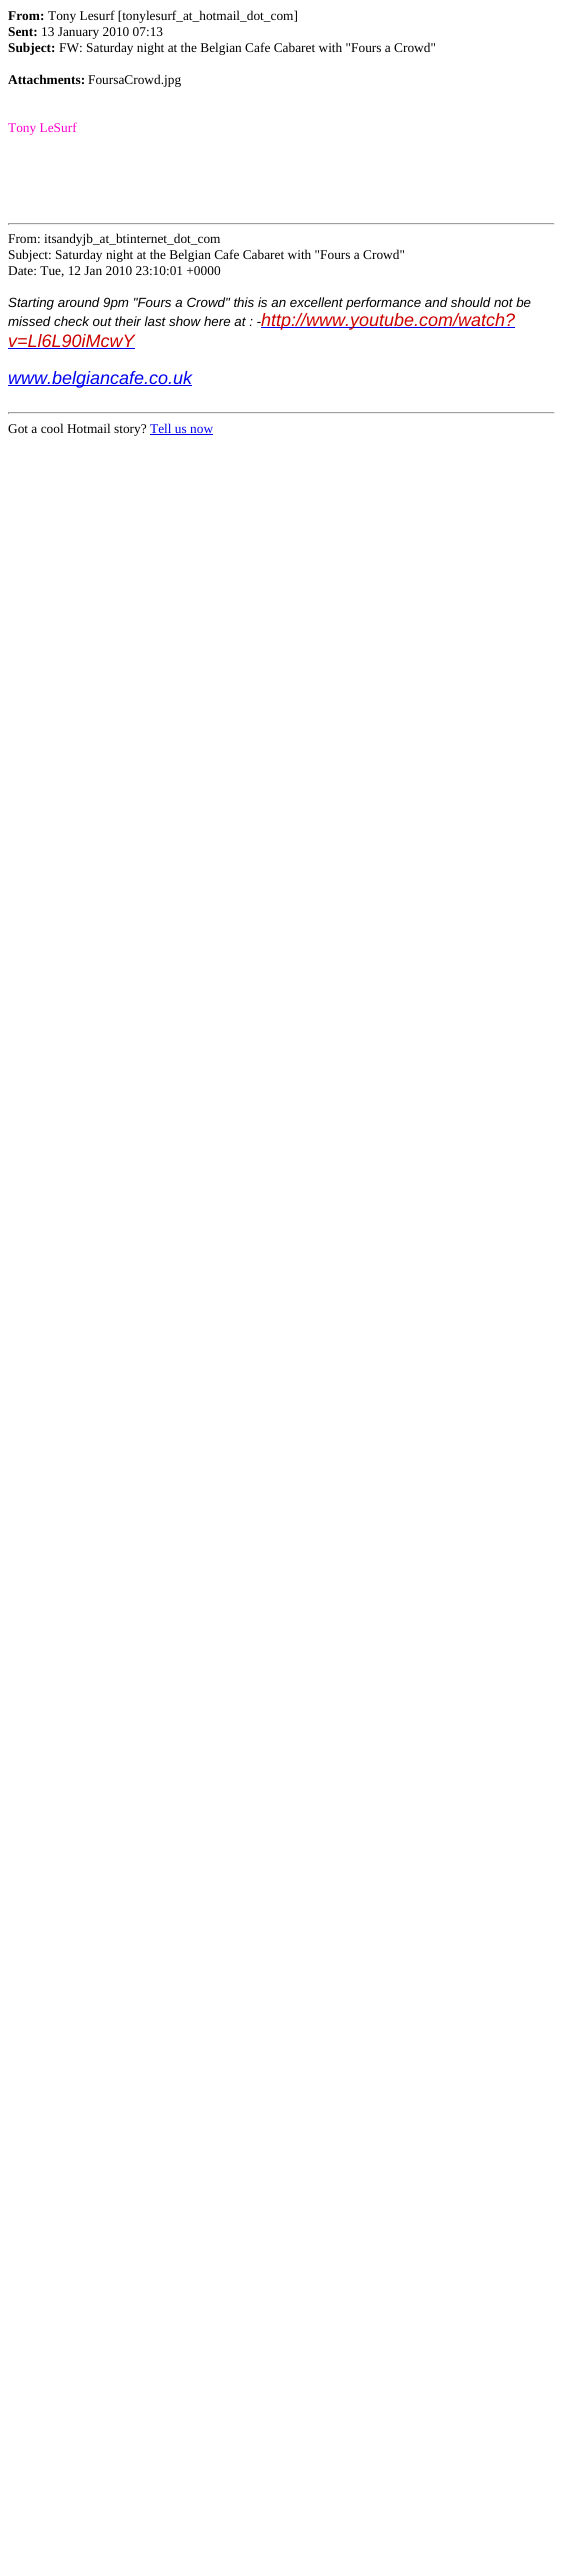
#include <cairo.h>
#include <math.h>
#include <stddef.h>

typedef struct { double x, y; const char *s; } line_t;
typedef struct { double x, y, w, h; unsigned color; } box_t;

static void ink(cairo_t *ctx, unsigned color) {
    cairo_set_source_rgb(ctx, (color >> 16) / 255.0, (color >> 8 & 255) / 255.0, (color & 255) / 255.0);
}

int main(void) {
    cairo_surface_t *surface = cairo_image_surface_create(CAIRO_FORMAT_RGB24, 563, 2561);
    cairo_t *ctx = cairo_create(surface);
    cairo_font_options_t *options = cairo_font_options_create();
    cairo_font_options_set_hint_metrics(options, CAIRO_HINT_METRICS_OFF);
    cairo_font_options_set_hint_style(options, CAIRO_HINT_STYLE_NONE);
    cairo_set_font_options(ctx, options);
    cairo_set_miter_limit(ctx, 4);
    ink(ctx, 0xFFFFFF);
    cairo_paint(ctx);
    cairo_select_font_face(ctx, "Liberation Serif", CAIRO_FONT_SLANT_NORMAL, CAIRO_FONT_WEIGHT_BOLD);
    cairo_set_font_size(ctx, 13.35);
    ink(ctx, 0x000000);
    cairo_move_to(ctx, 8, 20);
    cairo_show_text(ctx, "From:");
    cairo_select_font_face(ctx, "Liberation Serif", CAIRO_FONT_SLANT_NORMAL, CAIRO_FONT_WEIGHT_NORMAL);
    cairo_move_to(ctx, 48, 20);
    cairo_show_text(ctx, "Tony Lesurf [tonylesurf_at_hotmail_dot_com]");
    cairo_select_font_face(ctx, "Liberation Serif", CAIRO_FONT_SLANT_NORMAL, CAIRO_FONT_WEIGHT_BOLD);
    cairo_move_to(ctx, 8, 36);
    cairo_show_text(ctx, "Sent:");
    cairo_select_font_face(ctx, "Liberation Serif", CAIRO_FONT_SLANT_NORMAL, CAIRO_FONT_WEIGHT_NORMAL);
    cairo_move_to(ctx, 41, 36);
    cairo_show_text(ctx, "13 January 2010 07:13");
    cairo_select_font_face(ctx, "Liberation Serif", CAIRO_FONT_SLANT_NORMAL, CAIRO_FONT_WEIGHT_BOLD);
    cairo_move_to(ctx, 8, 52);
    cairo_show_text(ctx, "Subject:");
    cairo_select_font_face(ctx, "Liberation Serif", CAIRO_FONT_SLANT_NORMAL, CAIRO_FONT_WEIGHT_NORMAL);
    cairo_move_to(ctx, 59, 52);
    cairo_show_text(ctx, "FW: Saturday night at the Belgian Cafe Cabaret with \"Fours a Crowd\"");
    cairo_select_font_face(ctx, "Liberation Serif", CAIRO_FONT_SLANT_NORMAL, CAIRO_FONT_WEIGHT_BOLD);
    cairo_move_to(ctx, 8, 84);
    cairo_show_text(ctx, "Attachments:");
    cairo_select_font_face(ctx, "Liberation Serif", CAIRO_FONT_SLANT_NORMAL, CAIRO_FONT_WEIGHT_NORMAL);
    cairo_move_to(ctx, 88, 84);
    cairo_show_text(ctx, "FoursaCrowd.jpg");
    ink(ctx, 0xFF00CC);
    cairo_move_to(ctx, 8, 132);
    cairo_show_text(ctx, "Tony LeSurf");
    {
        static const box_t items[] = {
            {8, 223, 547, 1, 0x9F9F9F},
            {554, 223, 1, 2, 0xEEEEEE},
            {8, 224, 547, 1, 0xEEEEEE},
            {8, 223, 1, 2, 0x9F9F9F},
        };
        for (size_t i = 0; i < sizeof items / sizeof *items; i++) {
            ink(ctx, items[i].color);
            cairo_rectangle(ctx, items[i].x, items[i].y, items[i].w, items[i].h);
            cairo_fill(ctx);
        }
    }
    ink(ctx, 0x000000);
    {
        static const line_t items[] = {
            {8, 243, "From: itsandyjb_at_btinternet_dot_com"},
            {8, 259, "Subject: Saturday night at the Belgian Cafe Cabaret with \"Fours a Crowd\""},
            {8, 275, "Date: Tue, 12 Jan 2010 23:10:01 +0000"},
        };
        for (size_t i = 0; i < sizeof items / sizeof *items; i++) {
            cairo_move_to(ctx, items[i].x, items[i].y);
            cairo_show_text(ctx, items[i].s);
        }
    }
    cairo_select_font_face(ctx, "Liberation Sans", CAIRO_FONT_SLANT_ITALIC, CAIRO_FONT_WEIGHT_NORMAL);
    cairo_move_to(ctx, 8, 307);
    cairo_show_text(ctx, "Starting around 9pm \"Fours a Crowd\" this is an excellent performance and should not be");
    cairo_move_to(ctx, 8, 326);
    cairo_show_text(ctx, "missed check out their last show here at : -");
    ink(ctx, 0x0000EE);
    cairo_rectangle(ctx, 261, 327, 254, 1);
    cairo_fill(ctx);
    cairo_set_font_size(ctx, 18);
    ink(ctx, 0xCC0000);
    cairo_move_to(ctx, 261, 326);
    cairo_show_text(ctx, "http://www.youtube.com/watch?");
    cairo_move_to(ctx, 8, 347);
    cairo_show_text(ctx, "v=Ll6L90iMcwY");
    ink(ctx, 0x0000EE);
    cairo_rectangle(ctx, 8, 348, 127, 1);
    cairo_fill(ctx);
    cairo_rectangle(ctx, 8, 385, 184, 1);
    cairo_fill(ctx);
    cairo_move_to(ctx, 8, 384);
    cairo_show_text(ctx, "www.belgiancafe.co.uk");
    {
        static const box_t items[] = {
            {8, 412, 547, 1, 0x9F9F9F},
            {554, 412, 1, 2, 0xEEEEEE},
            {8, 413, 547, 1, 0xEEEEEE},
            {8, 412, 1, 2, 0x9F9F9F},
        };
        for (size_t i = 0; i < sizeof items / sizeof *items; i++) {
            ink(ctx, items[i].color);
            cairo_rectangle(ctx, items[i].x, items[i].y, items[i].w, items[i].h);
            cairo_fill(ctx);
        }
    }
    cairo_select_font_face(ctx, "Liberation Serif", CAIRO_FONT_SLANT_NORMAL, CAIRO_FONT_WEIGHT_NORMAL);
    cairo_set_font_size(ctx, 13.35);
    ink(ctx, 0x000000);
    cairo_move_to(ctx, 8, 433);
    cairo_show_text(ctx, "Got a cool Hotmail story?");
    ink(ctx, 0x0000EE);
    cairo_move_to(ctx, 150, 433);
    cairo_show_text(ctx, "Tell us now");
    cairo_rectangle(ctx, 150, 434, 63, 1);
    cairo_fill(ctx);
    cairo_surface_write_to_png(surface, "image.png");
    cairo_font_options_destroy(options);
    cairo_destroy(ctx);
    cairo_surface_destroy(surface);
    return 0;
}
